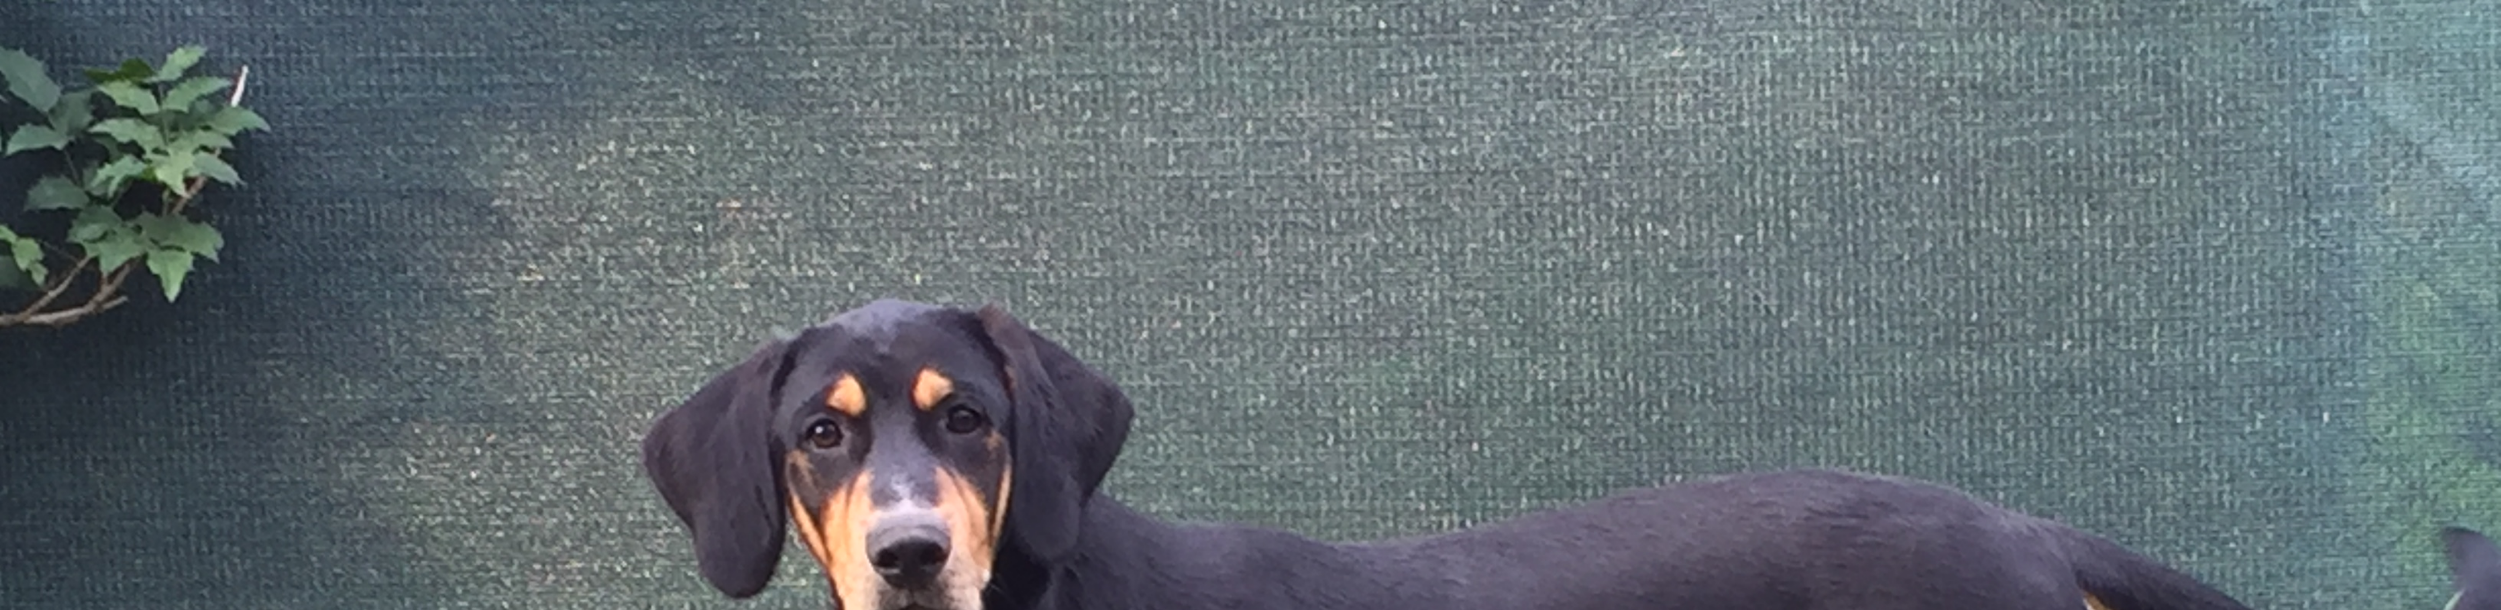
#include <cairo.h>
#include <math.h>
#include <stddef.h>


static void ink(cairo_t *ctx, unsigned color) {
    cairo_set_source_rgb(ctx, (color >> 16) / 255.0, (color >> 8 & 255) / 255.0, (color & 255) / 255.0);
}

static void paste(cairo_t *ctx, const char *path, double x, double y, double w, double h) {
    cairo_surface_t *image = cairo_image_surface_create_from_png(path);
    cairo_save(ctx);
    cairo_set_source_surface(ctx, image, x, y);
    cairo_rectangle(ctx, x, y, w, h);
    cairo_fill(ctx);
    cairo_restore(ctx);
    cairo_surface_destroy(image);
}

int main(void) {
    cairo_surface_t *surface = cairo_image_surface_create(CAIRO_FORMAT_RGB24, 2501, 610);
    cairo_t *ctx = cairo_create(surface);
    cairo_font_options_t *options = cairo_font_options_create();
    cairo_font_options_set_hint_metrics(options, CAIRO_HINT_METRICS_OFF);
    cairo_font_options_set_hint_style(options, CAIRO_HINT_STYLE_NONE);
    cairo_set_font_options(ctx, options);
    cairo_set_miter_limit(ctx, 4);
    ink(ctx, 0xFFFFFF);
    cairo_paint(ctx);
    paste(ctx, "media/1.png", 0, 0, 2501, 610);
    cairo_surface_write_to_png(surface, "image.png");
    cairo_font_options_destroy(options);
    cairo_destroy(ctx);
    cairo_surface_destroy(surface);
    return 0;
}
